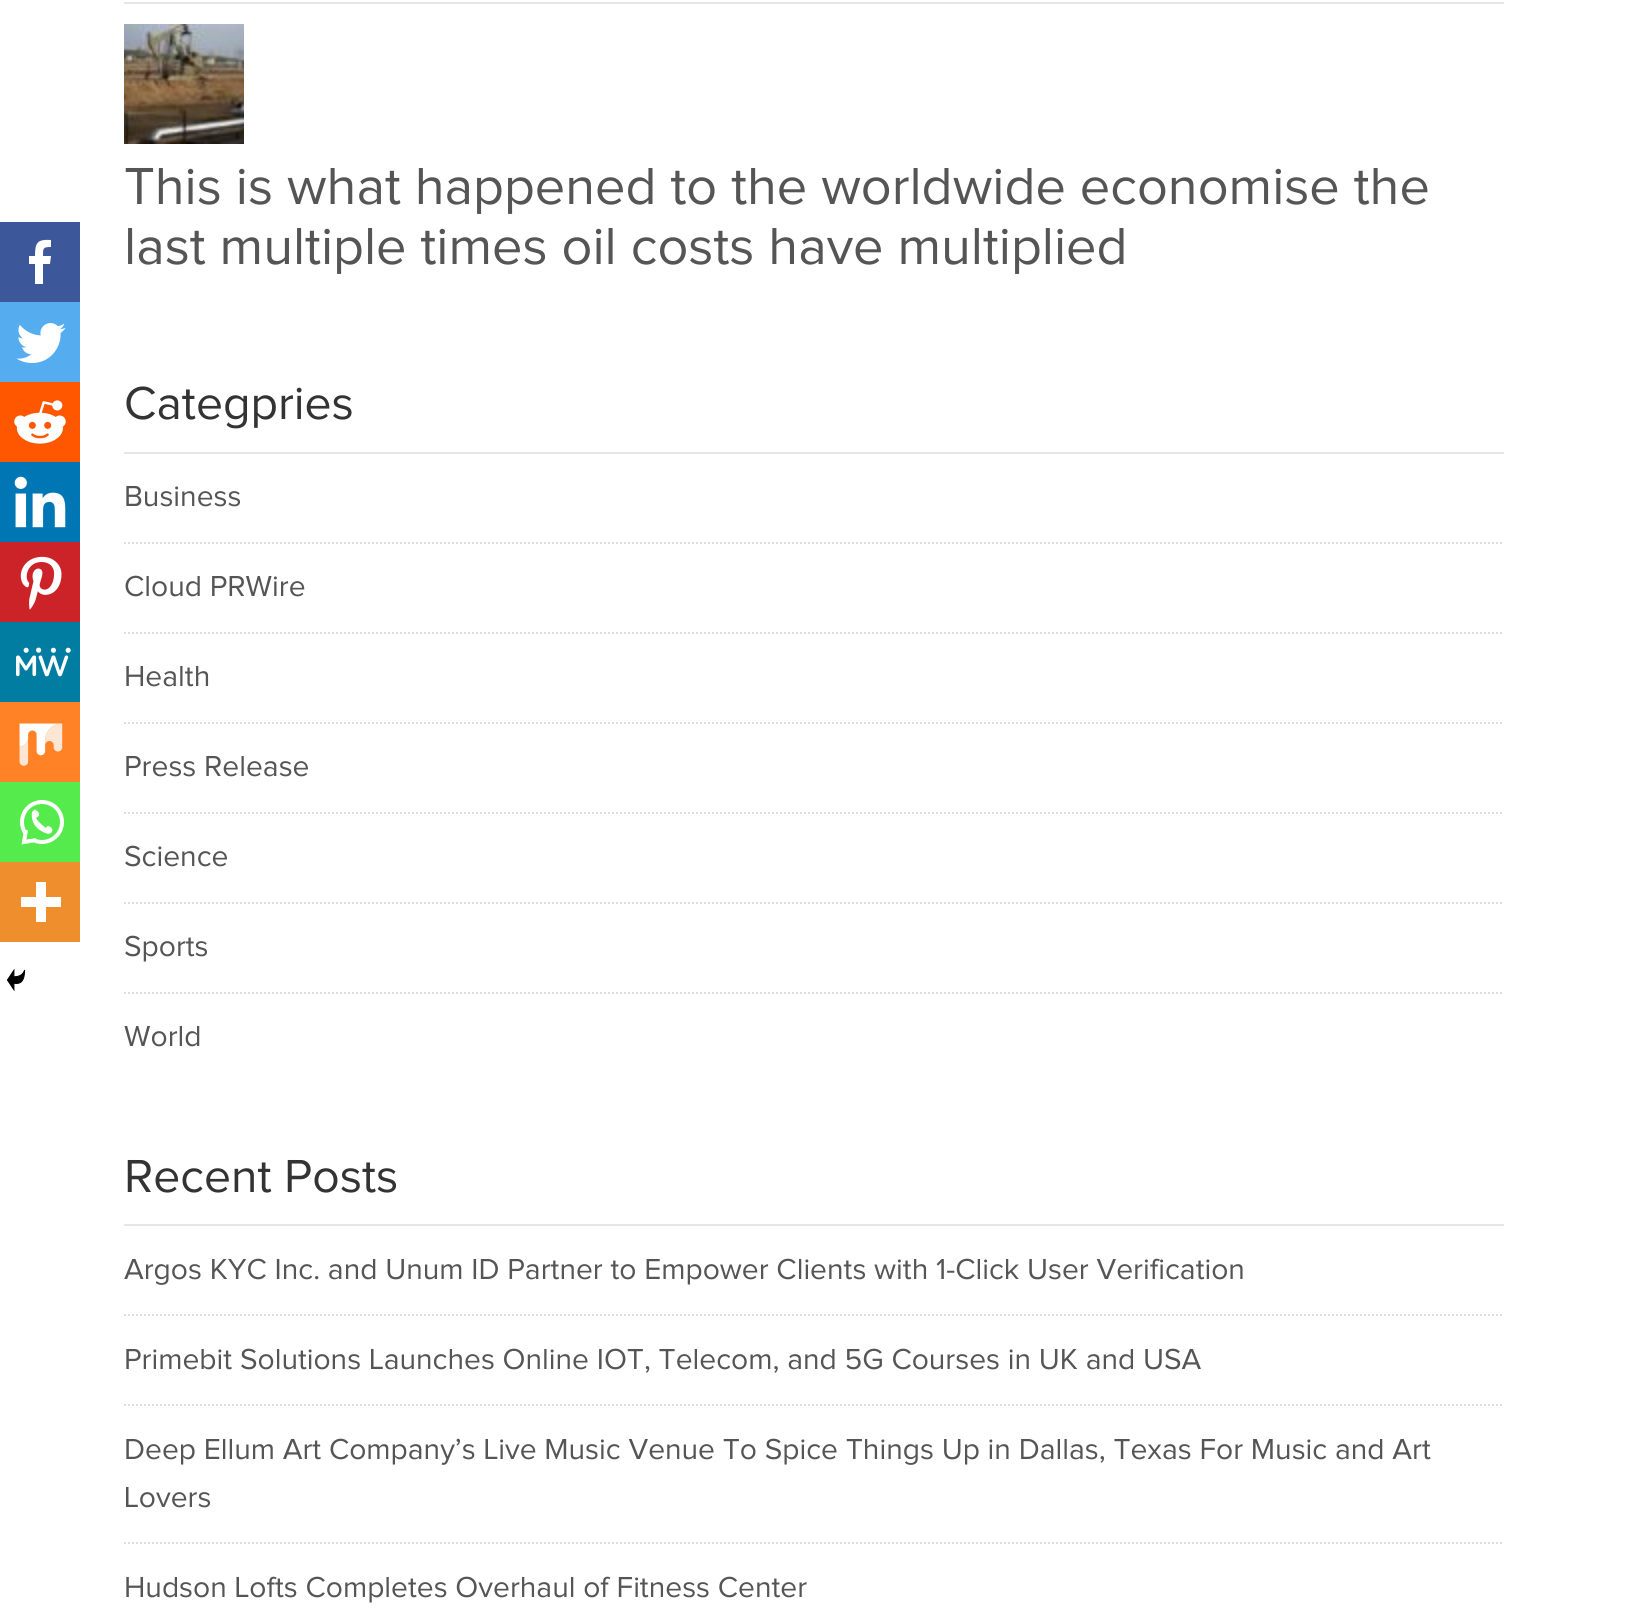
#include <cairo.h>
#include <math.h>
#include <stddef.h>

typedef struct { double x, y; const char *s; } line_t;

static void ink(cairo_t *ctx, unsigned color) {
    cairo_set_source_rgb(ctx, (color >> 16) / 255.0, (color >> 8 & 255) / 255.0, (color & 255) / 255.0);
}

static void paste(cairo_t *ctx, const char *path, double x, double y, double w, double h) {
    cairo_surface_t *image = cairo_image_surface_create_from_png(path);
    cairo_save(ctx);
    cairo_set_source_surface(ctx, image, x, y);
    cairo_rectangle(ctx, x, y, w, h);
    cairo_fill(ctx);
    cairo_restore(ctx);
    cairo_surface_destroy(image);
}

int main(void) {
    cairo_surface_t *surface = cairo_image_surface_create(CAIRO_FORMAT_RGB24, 1627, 1612);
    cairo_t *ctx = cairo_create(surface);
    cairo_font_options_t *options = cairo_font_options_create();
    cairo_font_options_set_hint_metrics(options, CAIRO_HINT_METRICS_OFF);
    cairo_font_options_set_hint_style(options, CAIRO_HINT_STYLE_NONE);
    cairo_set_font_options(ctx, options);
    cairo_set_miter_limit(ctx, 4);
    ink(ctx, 0xFFFFFF);
    cairo_paint(ctx);
    ink(ctx, 0x3C589A);
    cairo_rectangle(ctx, 0, 222, 80, 80);
    cairo_fill(ctx);
    ink(ctx, 0xFFFFFF);
    cairo_new_path(ctx);
    cairo_move_to(ctx, 43, 284);
    cairo_line_to(ctx, 43, 264);
    cairo_line_to(ctx, 50, 264);
    cairo_line_to(ctx, 51, 256);
    cairo_line_to(ctx, 43, 256);
    cairo_curve_to(ctx, 43, 248, 43, 247, 51, 247);
    cairo_line_to(ctx, 51, 240);
    cairo_curve_to(ctx, 37, 239, 35, 243, 35, 256);
    cairo_line_to(ctx, 29, 256);
    cairo_line_to(ctx, 29, 264);
    cairo_line_to(ctx, 35, 264);
    cairo_line_to(ctx, 35, 284);
    cairo_close_path(ctx);
    cairo_fill(ctx);
    ink(ctx, 0x55ACEE);
    cairo_rectangle(ctx, 0, 302, 80, 80);
    cairo_fill(ctx);
    paste(ctx, "media/1.png", 16, 323, 50, 40);
    ink(ctx, 0xFF5700);
    cairo_rectangle(ctx, 0, 382, 80, 80);
    cairo_fill(ctx);
    paste(ctx, "media/2.png", 14, 400, 52, 44);
    ink(ctx, 0x0077B5);
    cairo_rectangle(ctx, 0, 462, 80, 80);
    cairo_fill(ctx);
    paste(ctx, "media/3.png", 14, 476, 52, 52);
    ink(ctx, 0xCC2329);
    cairo_rectangle(ctx, 0, 542, 80, 80);
    cairo_fill(ctx);
    paste(ctx, "media/4.png", 20, 556, 42, 54);
    ink(ctx, 0x007DA1);
    cairo_rectangle(ctx, 0, 622, 80, 80);
    cairo_fill(ctx);
    paste(ctx, "media/5.png", 16, 647, 55, 30);
    ink(ctx, 0xFF8226);
    cairo_rectangle(ctx, 0, 702, 80, 80);
    cairo_fill(ctx);
    paste(ctx, "media/6.png", 19, 723, 44, 43);
    ink(ctx, 0x55EB4C);
    cairo_rectangle(ctx, 0, 782, 80, 80);
    cairo_fill(ctx);
    paste(ctx, "media/7.png", 20, 800, 44, 45);
    ink(ctx, 0xEE8E2D);
    cairo_rectangle(ctx, 0, 862, 80, 80);
    cairo_fill(ctx);
    ink(ctx, 0xFFFFFF);
    cairo_set_fill_rule(ctx, CAIRO_FILL_RULE_EVEN_ODD);
    cairo_new_path(ctx);
    cairo_move_to(ctx, 46, 897);
    cairo_line_to(ctx, 46, 882);
    cairo_line_to(ctx, 36, 882);
    cairo_line_to(ctx, 36, 897);
    cairo_line_to(ctx, 21, 897);
    cairo_line_to(ctx, 21, 907);
    cairo_line_to(ctx, 36, 907);
    cairo_line_to(ctx, 36, 922);
    cairo_line_to(ctx, 46, 922);
    cairo_line_to(ctx, 46, 907);
    cairo_line_to(ctx, 61, 907);
    cairo_line_to(ctx, 61, 897);
    cairo_close_path(ctx);
    cairo_fill(ctx);
    paste(ctx, "media/8.png", 6, 968, 20, 24);
    ink(ctx, 0xE6E6E6);
    cairo_rectangle(ctx, 124, 2, 1380, 2);
    cairo_fill(ctx);
    paste(ctx, "media/9.png", 124, 24, 120, 120);
    cairo_select_font_face(ctx, "Proxima Nova", CAIRO_FONT_SLANT_NORMAL, CAIRO_FONT_WEIGHT_NORMAL);
    cairo_set_font_size(ctx, 54);
    ink(ctx, 0x555555);
    cairo_move_to(ctx, 124, 204);
    cairo_show_text(ctx, "This is what happened to the worldwide economise the");
    cairo_move_to(ctx, 124, 264);
    cairo_show_text(ctx, "last multiple times oil costs have multiplied");
    ink(ctx, 0xE6E6E6);
    cairo_rectangle(ctx, 124, 452, 1380, 2);
    cairo_fill(ctx);
    cairo_set_font_size(ctx, 48);
    ink(ctx, 0x333333);
    cairo_move_to(ctx, 124, 419);
    cairo_show_text(ctx, "Categpries");
    cairo_new_path(ctx);
    cairo_move_to(ctx, 124, 543);
    cairo_line_to(ctx, 1504, 543);
    ink(ctx, 0xDDDDDD);
    cairo_set_dash(ctx, (double[]){2, 2}, 2, 0);
    cairo_stroke(ctx);
    cairo_set_font_size(ctx, 30);
    ink(ctx, 0x555555);
    cairo_move_to(ctx, 124, 506);
    cairo_show_text(ctx, "Business");
    cairo_new_path(ctx);
    cairo_move_to(ctx, 124, 633);
    cairo_line_to(ctx, 1504, 633);
    ink(ctx, 0xDDDDDD);
    cairo_stroke(ctx);
    ink(ctx, 0x555555);
    cairo_move_to(ctx, 124, 596);
    cairo_show_text(ctx, "Cloud PRWire");
    cairo_new_path(ctx);
    cairo_move_to(ctx, 124, 723);
    cairo_line_to(ctx, 1504, 723);
    ink(ctx, 0xDDDDDD);
    cairo_stroke(ctx);
    ink(ctx, 0x555555);
    cairo_move_to(ctx, 124, 686);
    cairo_show_text(ctx, "Health");
    cairo_new_path(ctx);
    cairo_move_to(ctx, 124, 813);
    cairo_line_to(ctx, 1504, 813);
    ink(ctx, 0xDDDDDD);
    cairo_stroke(ctx);
    ink(ctx, 0x555555);
    cairo_move_to(ctx, 124, 776);
    cairo_show_text(ctx, "Press Release");
    cairo_new_path(ctx);
    cairo_move_to(ctx, 124, 903);
    cairo_line_to(ctx, 1504, 903);
    ink(ctx, 0xDDDDDD);
    cairo_stroke(ctx);
    ink(ctx, 0x555555);
    cairo_move_to(ctx, 124, 866);
    cairo_show_text(ctx, "Science");
    cairo_new_path(ctx);
    cairo_move_to(ctx, 124, 993);
    cairo_line_to(ctx, 1504, 993);
    ink(ctx, 0xDDDDDD);
    cairo_stroke(ctx);
    ink(ctx, 0x555555);
    cairo_move_to(ctx, 124, 956);
    cairo_show_text(ctx, "Sports");
    cairo_move_to(ctx, 124, 1046);
    cairo_show_text(ctx, "World");
    ink(ctx, 0xE6E6E6);
    cairo_rectangle(ctx, 124, 1224, 1380, 2);
    cairo_fill(ctx);
    cairo_set_font_size(ctx, 48);
    ink(ctx, 0x333333);
    cairo_move_to(ctx, 124, 1192);
    cairo_show_text(ctx, "Recent Posts");
    cairo_new_path(ctx);
    cairo_move_to(ctx, 124, 1315);
    cairo_line_to(ctx, 1504, 1315);
    ink(ctx, 0xDDDDDD);
    cairo_stroke(ctx);
    cairo_set_font_size(ctx, 30);
    ink(ctx, 0x555555);
    cairo_move_to(ctx, 124, 1279);
    cairo_show_text(ctx, "Argos KYC Inc. and Unum ID Partner to Empower Clients with 1-Click User Verification");
    cairo_new_path(ctx);
    cairo_move_to(ctx, 124, 1405);
    cairo_line_to(ctx, 1504, 1405);
    ink(ctx, 0xDDDDDD);
    cairo_stroke(ctx);
    ink(ctx, 0x555555);
    cairo_move_to(ctx, 124, 1369);
    cairo_show_text(ctx, "Primebit Solutions Launches Online IOT, Telecom, and 5G Courses in UK and USA");
    cairo_new_path(ctx);
    cairo_move_to(ctx, 124, 1543);
    cairo_line_to(ctx, 1504, 1543);
    ink(ctx, 0xDDDDDD);
    cairo_stroke(ctx);
    ink(ctx, 0x555555);
    {
        static const line_t items[] = {
            {124, 1459, "Deep Ellum Art Company’s Live Music Venue To Spice Things Up in Dallas, Texas For Music and Art"},
            {124, 1507, "Lovers"},
            {124, 1597, "Hudson Lofts Completes Overhaul of Fitness Center"},
        };
        for (size_t i = 0; i < sizeof items / sizeof *items; i++) {
            cairo_move_to(ctx, items[i].x, items[i].y);
            cairo_show_text(ctx, items[i].s);
        }
    }
    cairo_surface_write_to_png(surface, "image.png");
    cairo_font_options_destroy(options);
    cairo_destroy(ctx);
    cairo_surface_destroy(surface);
    return 0;
}
